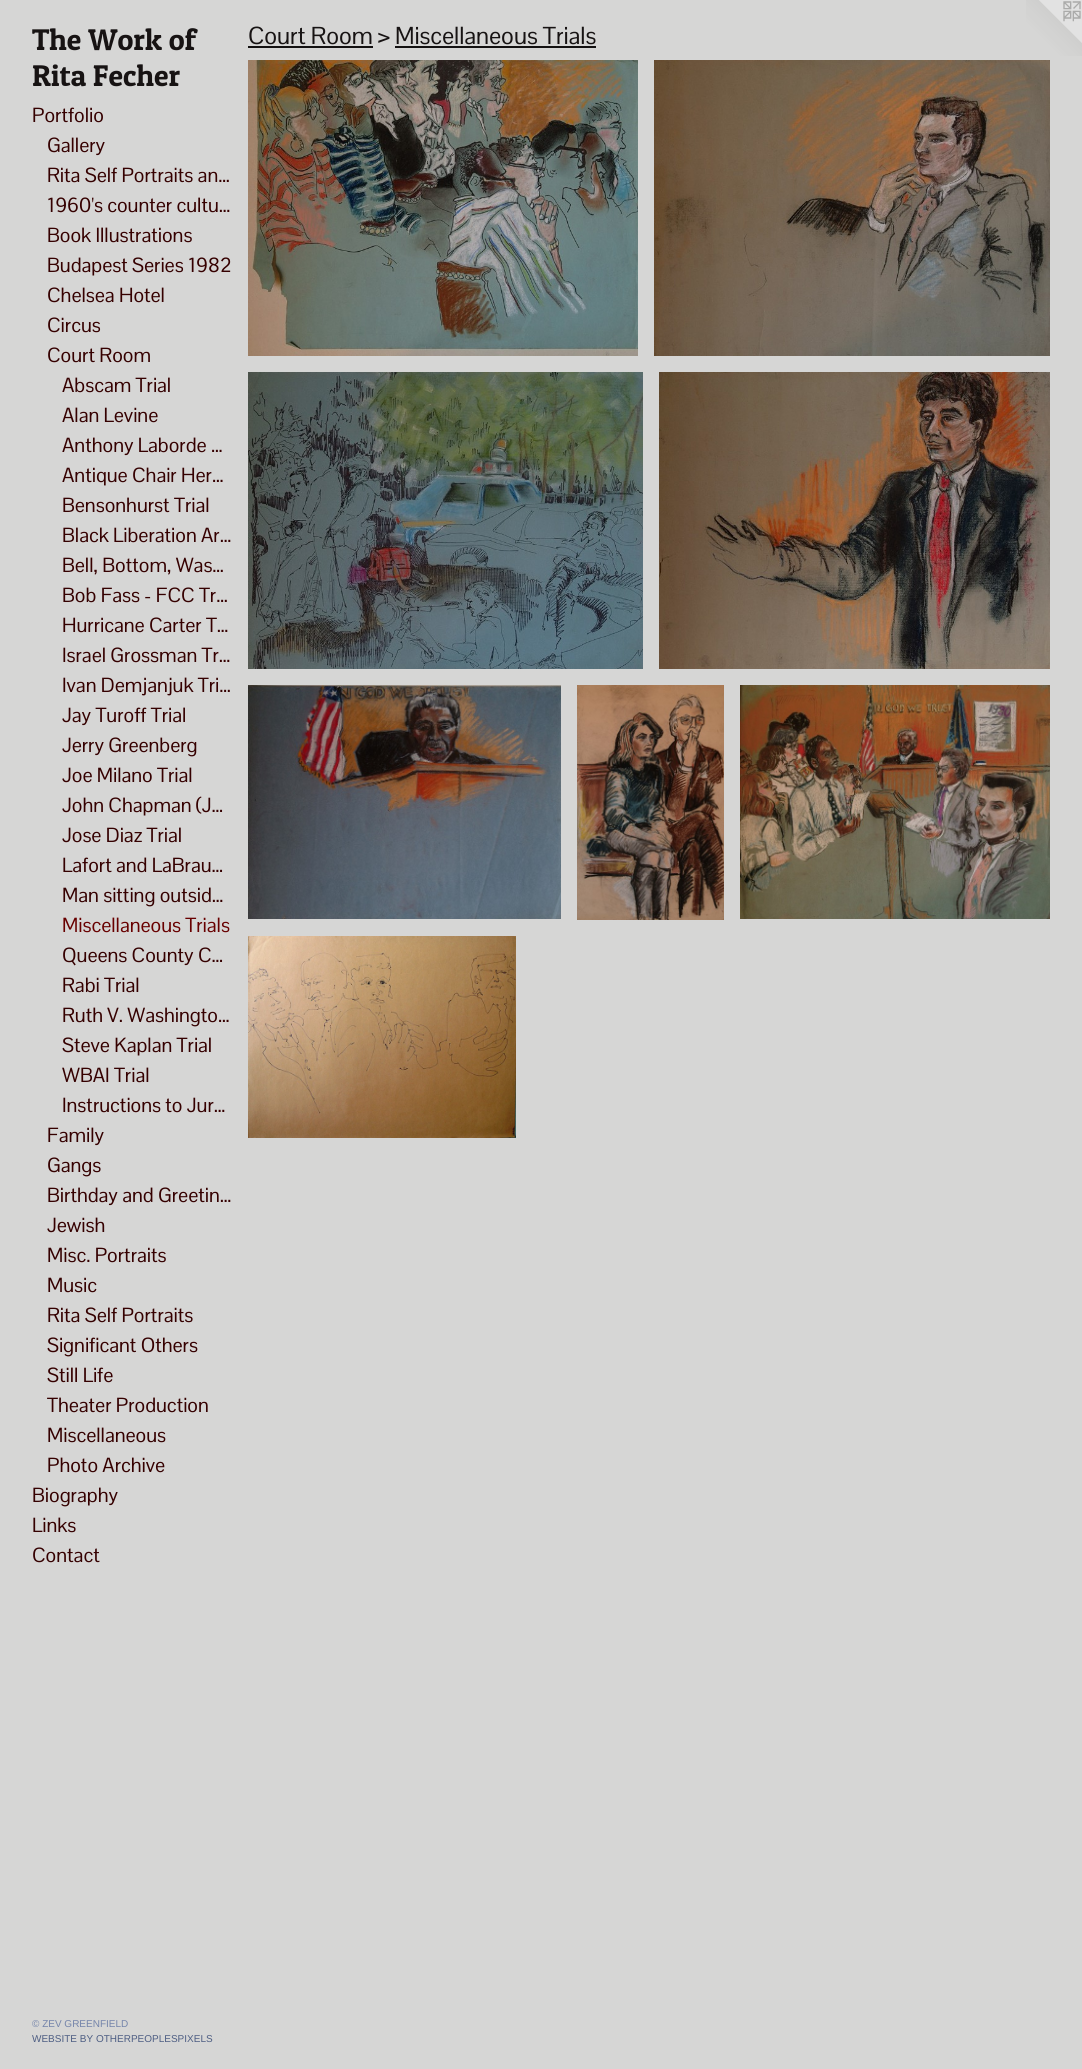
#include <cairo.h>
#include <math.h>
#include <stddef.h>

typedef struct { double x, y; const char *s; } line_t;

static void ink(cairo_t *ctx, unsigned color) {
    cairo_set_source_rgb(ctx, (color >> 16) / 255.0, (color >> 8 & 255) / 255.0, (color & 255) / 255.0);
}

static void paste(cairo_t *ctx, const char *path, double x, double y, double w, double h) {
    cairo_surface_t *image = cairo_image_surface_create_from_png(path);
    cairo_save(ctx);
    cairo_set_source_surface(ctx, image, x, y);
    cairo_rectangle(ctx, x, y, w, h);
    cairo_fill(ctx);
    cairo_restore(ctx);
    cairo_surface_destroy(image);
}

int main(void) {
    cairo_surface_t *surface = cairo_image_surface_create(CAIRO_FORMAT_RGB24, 1082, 2069);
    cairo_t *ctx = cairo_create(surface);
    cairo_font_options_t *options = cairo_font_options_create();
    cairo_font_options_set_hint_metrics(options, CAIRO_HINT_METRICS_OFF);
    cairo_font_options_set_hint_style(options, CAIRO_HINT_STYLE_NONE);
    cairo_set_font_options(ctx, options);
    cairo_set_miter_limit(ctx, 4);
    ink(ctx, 0xD6D6D5);
    cairo_paint(ctx);
    cairo_select_font_face(ctx, "Patua One", CAIRO_FONT_SLANT_NORMAL, CAIRO_FONT_WEIGHT_NORMAL);
    cairo_set_font_size(ctx, 30);
    ink(ctx, 0x171313);
    cairo_move_to(ctx, 32, 50);
    cairo_show_text(ctx, "The Work of");
    cairo_move_to(ctx, 32, 86);
    cairo_show_text(ctx, "Rita Fecher");
    cairo_select_font_face(ctx, "Pontano Sans", CAIRO_FONT_SLANT_NORMAL, CAIRO_FONT_WEIGHT_NORMAL);
    cairo_set_font_size(ctx, 20);
    ink(ctx, 0x350000);
    {
        static const line_t items[] = {
            {32, 122, "Portfolio"},
            {47, 152, "Gallery"},
            {47, 182, "Rita Self Portraits an…"},
            {47, 212, "1960's counter cultu…"},
            {47, 242, "Book Illustrations"},
            {47, 272, "Budapest Series 1982"},
            {47, 302, "Chelsea Hotel"},
            {47, 332, "Circus"},
            {47, 362, "Court Room"},
            {62, 392, "Abscam Trial"},
            {62, 422, "Alan Levine"},
            {62, 452, "Anthony Laborde …"},
            {62, 482, "Antique Chair Her…"},
            {62, 512, "Bensonhurst Trial"},
            {62, 542, "Black Liberation Ar…"},
            {62, 572, "Bell, Bottom, Was…"},
            {62, 602, "Bob Fass - FCC Tr…"},
            {62, 632, "Hurricane Carter T…"},
            {62, 662, "Israel Grossman Tr…"},
            {62, 692, "Ivan Demjanjuk Tri…"},
            {62, 722, "Jay Turoff Trial"},
            {62, 752, "Jerry Greenberg"},
            {62, 782, "Joe Milano Trial"},
            {62, 812, "John Chapman (J…"},
            {62, 842, "Jose Diaz Trial"},
            {62, 872, "Lafort and LaBrau…"},
            {62, 902, "Man sitting outsid…"},
        };
        for (size_t i = 0; i < sizeof items / sizeof *items; i++) {
            cairo_move_to(ctx, items[i].x, items[i].y);
            cairo_show_text(ctx, items[i].s);
        }
    }
    ink(ctx, 0x680000);
    cairo_move_to(ctx, 62, 932);
    cairo_show_text(ctx, "Miscellaneous Trials");
    ink(ctx, 0x350000);
    {
        static const line_t items[] = {
            {62, 962, "Queens County C…"},
            {62, 992, "Rabi Trial"},
            {62, 1022, "Ruth V. Washingto…"},
            {62, 1052, "Steve Kaplan Trial"},
            {62, 1082, "WBAI Trial"},
            {62, 1112, "Instructions to Jur…"},
            {47, 1142, "Family"},
            {47, 1172, "Gangs"},
            {47, 1202, "Birthday and Greetin…"},
            {47, 1232, "Jewish"},
            {47, 1262, "Misc. Portraits"},
            {47, 1292, "Music"},
            {47, 1322, "Rita Self Portraits"},
            {47, 1352, "Significant Others"},
            {47, 1382, "Still Life"},
            {47, 1412, "Theater Production"},
            {47, 1442, "Miscellaneous"},
            {47, 1472, "Photo Archive"},
            {32, 1502, "Biography"},
            {32, 1532, "Links"},
            {32, 1562, "Contact"},
        };
        for (size_t i = 0; i < sizeof items / sizeof *items; i++) {
            cairo_move_to(ctx, items[i].x, items[i].y);
            cairo_show_text(ctx, items[i].s);
        }
    }
    cairo_select_font_face(ctx, "Liberation Sans", CAIRO_FONT_SLANT_NORMAL, CAIRO_FONT_WEIGHT_NORMAL);
    cairo_set_font_size(ctx, 10);
    ink(ctx, 0x7484AA);
    cairo_move_to(ctx, 32, 2027);
    cairo_show_text(ctx, "© ZEV GREENFIELD");
    ink(ctx, 0x4E5E83);
    cairo_move_to(ctx, 32, 2042);
    cairo_show_text(ctx, "WEBSITE BY OTHERPEOPLESPIXELS");
    cairo_select_font_face(ctx, "Pontano Sans", CAIRO_FONT_SLANT_NORMAL, CAIRO_FONT_WEIGHT_NORMAL);
    cairo_set_font_size(ctx, 24);
    ink(ctx, 0x171313);
    cairo_move_to(ctx, 248, 44);
    cairo_show_text(ctx, "Court Room > Miscellaneous Trials");
    ink(ctx, 0x131111);
    cairo_rectangle(ctx, 248, 46, 125, 2);
    cairo_fill(ctx);
    cairo_rectangle(ctx, 395, 46, 201, 2);
    cairo_fill(ctx);
    paste(ctx, "media/1.png", 248, 60, 390, 296);
    paste(ctx, "media/2.png", 654, 60, 396, 296);
    paste(ctx, "media/3.png", 248, 372, 395, 297);
    paste(ctx, "media/4.png", 659, 372, 391, 297);
    paste(ctx, "media/5.png", 248, 685, 313, 234);
    paste(ctx, "media/6.png", 577, 685, 147, 235);
    paste(ctx, "media/7.png", 740, 685, 310, 234);
    paste(ctx, "media/8.png", 248, 936, 268, 202);
    paste(ctx, "media/9.png", 1026, 0, 56, 56);
    cairo_surface_write_to_png(surface, "image.png");
    cairo_font_options_destroy(options);
    cairo_destroy(ctx);
    cairo_surface_destroy(surface);
    return 0;
}
